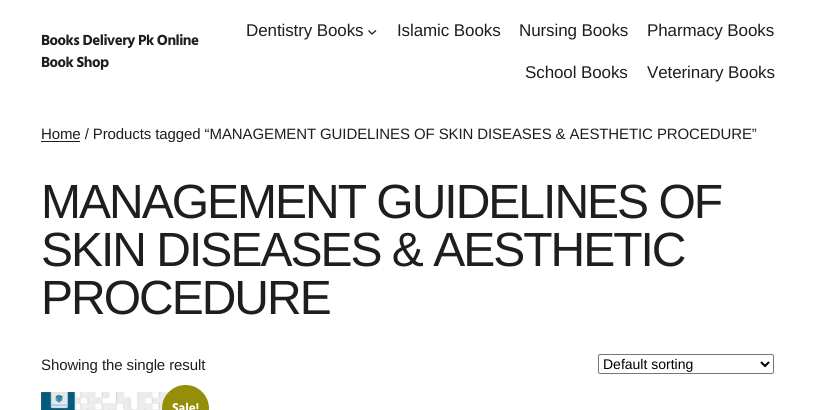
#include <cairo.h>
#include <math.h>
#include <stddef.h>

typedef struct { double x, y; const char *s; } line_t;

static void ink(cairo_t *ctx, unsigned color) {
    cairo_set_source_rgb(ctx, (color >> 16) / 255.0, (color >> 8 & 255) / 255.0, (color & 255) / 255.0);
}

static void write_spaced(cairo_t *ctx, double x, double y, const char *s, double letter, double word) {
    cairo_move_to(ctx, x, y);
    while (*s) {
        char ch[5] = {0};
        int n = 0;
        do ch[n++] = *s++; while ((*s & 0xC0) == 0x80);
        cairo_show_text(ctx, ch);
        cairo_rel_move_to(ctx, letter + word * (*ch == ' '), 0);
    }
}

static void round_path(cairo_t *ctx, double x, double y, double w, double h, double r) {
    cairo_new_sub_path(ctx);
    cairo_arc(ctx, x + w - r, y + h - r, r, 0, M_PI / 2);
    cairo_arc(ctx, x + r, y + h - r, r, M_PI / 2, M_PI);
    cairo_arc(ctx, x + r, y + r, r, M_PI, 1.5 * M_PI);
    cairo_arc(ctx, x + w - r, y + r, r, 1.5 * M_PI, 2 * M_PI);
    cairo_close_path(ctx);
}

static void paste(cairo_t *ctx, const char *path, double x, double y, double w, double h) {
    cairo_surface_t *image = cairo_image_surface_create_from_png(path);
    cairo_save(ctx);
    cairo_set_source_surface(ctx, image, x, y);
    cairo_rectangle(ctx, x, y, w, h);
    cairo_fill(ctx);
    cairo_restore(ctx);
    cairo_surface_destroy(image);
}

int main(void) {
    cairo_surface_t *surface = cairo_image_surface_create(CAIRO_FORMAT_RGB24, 815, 410);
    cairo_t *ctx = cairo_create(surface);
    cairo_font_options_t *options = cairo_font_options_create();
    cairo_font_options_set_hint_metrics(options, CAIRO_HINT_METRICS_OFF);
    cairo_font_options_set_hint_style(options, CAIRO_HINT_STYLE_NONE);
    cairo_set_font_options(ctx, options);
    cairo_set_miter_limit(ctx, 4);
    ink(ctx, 0xFFFFFF);
    cairo_paint(ctx);
    cairo_select_font_face(ctx, "Hind", CAIRO_FONT_SLANT_NORMAL, CAIRO_FONT_WEIGHT_BOLD);
    cairo_set_font_size(ctx, 15);
    ink(ctx, 0x1E1E1E);
    write_spaced(ctx, 41, 45, "Books Delivery Pk Online", -0.5, 0);
    write_spaced(ctx, 41, 67, "Book Shop", -0.5, 0);
    cairo_select_font_face(ctx, "Liberation Sans", CAIRO_FONT_SLANT_NORMAL, CAIRO_FONT_WEIGHT_NORMAL);
    cairo_set_font_size(ctx, 17);
    write_spaced(ctx, 246, 36, "Dentistry Books", -0.1, 0);
    cairo_new_path(ctx);
    cairo_move_to(ctx, 368.5, 30.5);
    cairo_line_to(ctx, 372, 34);
    cairo_line_to(ctx, 376, 30.5);
    cairo_set_line_width(ctx, 1.3);
    cairo_stroke(ctx);
    {
        static const line_t items[] = {
            {397, 36, "Islamic Books"},
            {519, 36, "Nursing Books"},
            {647, 36, "Pharmacy Books"},
            {525, 78, "School Books"},
            {647, 78, "Veterinary Books"},
        };
        for (size_t i = 0; i < sizeof items / sizeof *items; i++) {
            write_spaced(ctx, items[i].x, items[i].y, items[i].s, -0.1, 0);
        }
    }
    cairo_rectangle(ctx, 41, 141, 39, 1);
    cairo_fill(ctx);
    cairo_set_font_size(ctx, 15);
    write_spaced(ctx, 41, 139, "Home / Products tagged “MANAGEMENT GUIDELINES OF SKIN DISEASES & AESTHETIC PROCEDURE”", -0.1, 0);
    cairo_set_font_size(ctx, 48);
    {
        static const line_t items[] = {
            {41, 218, "MANAGEMENT GUIDELINES OF"},
            {41, 266, "SKIN DISEASES & AESTHETIC"},
            {41, 314, "PROCEDURE"},
        };
        for (size_t i = 0; i < sizeof items / sizeof *items; i++) {
            write_spaced(ctx, items[i].x, items[i].y, items[i].s, -2, 0);
        }
    }
    cairo_set_font_size(ctx, 15);
    write_spaced(ctx, 41, 370, "Showing the single result", -0.1, 0);
    round_path(ctx, 598.5, 354.5, 175, 19, 1.5);
    ink(ctx, 0x767676);
    cairo_set_line_width(ctx, 1);
    cairo_stroke(ctx);
    cairo_new_path(ctx);
    cairo_move_to(ctx, 761, 362);
    cairo_line_to(ctx, 765, 366);
    cairo_line_to(ctx, 769, 362);
    ink(ctx, 0x000000);
    cairo_set_line_width(ctx, 2);
    cairo_stroke(ctx);
    cairo_set_font_size(ctx, 14);
    cairo_move_to(ctx, 603, 369);
    cairo_show_text(ctx, "Default sorting");
    paste(ctx, "media/1.png", 41, 392, 128, 18);
    ink(ctx, 0x958E09);
    cairo_arc(ctx, 185.5, 408.5, 23.5, 0, 2 * M_PI);
    cairo_fill(ctx);
    cairo_select_font_face(ctx, "Hind", CAIRO_FONT_SLANT_NORMAL, CAIRO_FONT_WEIGHT_BOLD);
    cairo_set_font_size(ctx, 13);
    ink(ctx, 0xFFFFFF);
    write_spaced(ctx, 172, 412, "Sale!", -0.1, 0);
    cairo_surface_write_to_png(surface, "image.png");
    cairo_font_options_destroy(options);
    cairo_destroy(ctx);
    cairo_surface_destroy(surface);
    return 0;
}
